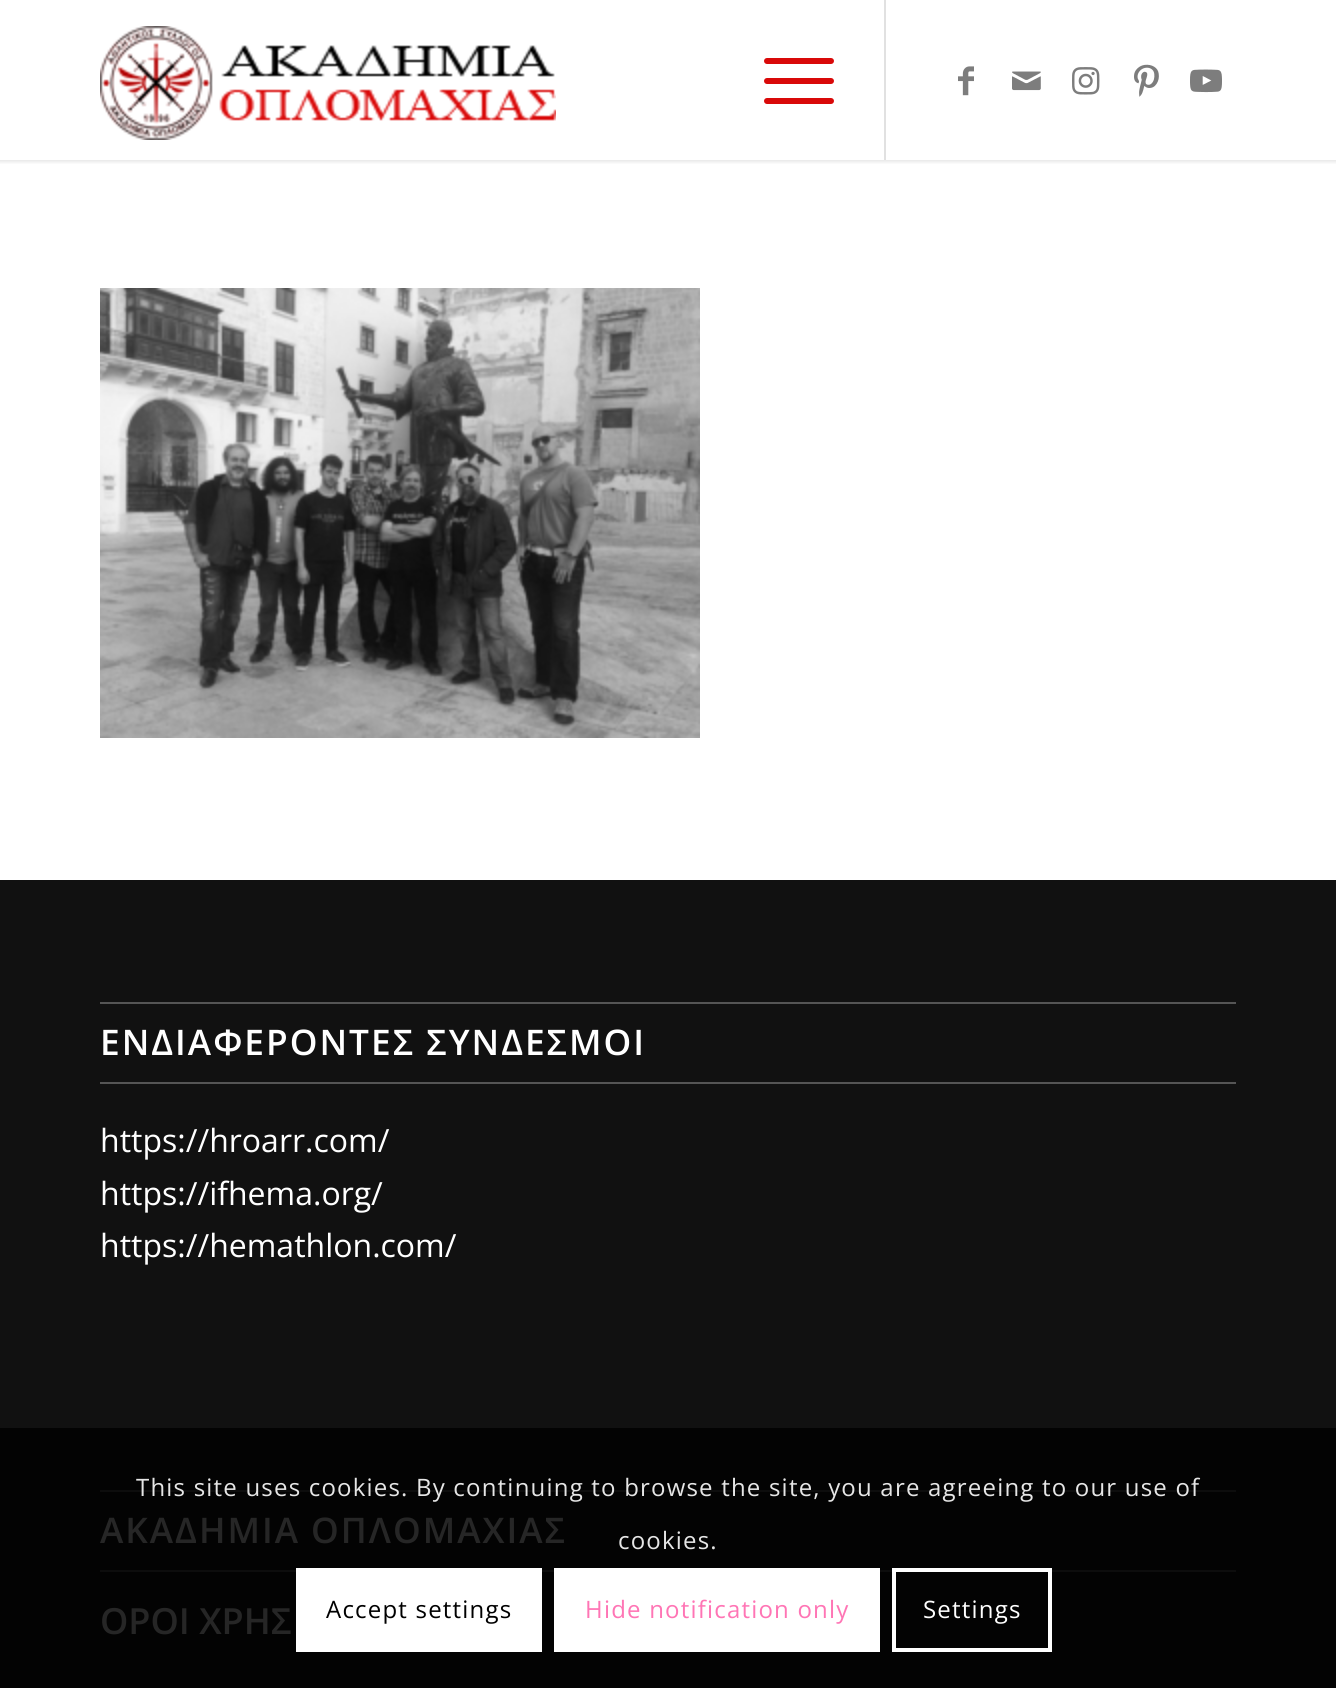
#include <cairo.h>
#include <math.h>
#include <stddef.h>

typedef struct { double x, y; const char *s; } line_t;
typedef struct { double x, y, w, h; unsigned color; } box_t;

static void ink(cairo_t *ctx, unsigned color) {
    cairo_set_source_rgb(ctx, (color >> 16) / 255.0, (color >> 8 & 255) / 255.0, (color & 255) / 255.0);
}

static void write_spaced(cairo_t *ctx, double x, double y, const char *s, double letter, double word) {
    cairo_move_to(ctx, x, y);
    while (*s) {
        char ch[5] = {0};
        int n = 0;
        do ch[n++] = *s++; while ((*s & 0xC0) == 0x80);
        cairo_show_text(ctx, ch);
        cairo_rel_move_to(ctx, letter + word * (*ch == ' '), 0);
    }
}

static void round_path(cairo_t *ctx, double x, double y, double w, double h, double r) {
    cairo_new_sub_path(ctx);
    cairo_arc(ctx, x + w - r, y + h - r, r, 0, M_PI / 2);
    cairo_arc(ctx, x + r, y + h - r, r, M_PI / 2, M_PI);
    cairo_arc(ctx, x + r, y + r, r, M_PI, 1.5 * M_PI);
    cairo_arc(ctx, x + w - r, y + r, r, 1.5 * M_PI, 2 * M_PI);
    cairo_close_path(ctx);
}

static void blur_box(cairo_t *ctx, double x, double y, double w, double h, double r, double blur, double alpha) {
    cairo_push_group_with_content(ctx, CAIRO_CONTENT_ALPHA);
    cairo_set_operator(ctx, CAIRO_OPERATOR_SOURCE);
    for (int i = 15; i >= -15 && fmin(w, h) + blur * i / 3 > 0; i -= 2) {
        double e = blur * i / 6;
        cairo_set_source_rgba(ctx, 0, 0, 0, alpha * erfc((i - 1) / 8.5) / 2);
        round_path(ctx, x - e, y - e, w + 2 * e, h + 2 * e, fmax(0, fmin(r + e + blur * .6, fmin(w, h) / 2 + e)));
        cairo_fill(ctx);
    }
    cairo_pattern_t *soft = cairo_pop_group(ctx);
    cairo_mask(ctx, soft);
    cairo_pattern_destroy(soft);
}

static void paste(cairo_t *ctx, const char *path, double x, double y, double w, double h) {
    cairo_surface_t *image = cairo_image_surface_create_from_png(path);
    cairo_save(ctx);
    cairo_set_source_surface(ctx, image, x, y);
    cairo_rectangle(ctx, x, y, w, h);
    cairo_fill(ctx);
    cairo_restore(ctx);
    cairo_surface_destroy(image);
}

int main(void) {
    cairo_surface_t *surface = cairo_image_surface_create(CAIRO_FORMAT_RGB24, 1336, 1688);
    cairo_t *ctx = cairo_create(surface);
    cairo_font_options_t *options = cairo_font_options_create();
    cairo_font_options_set_hint_metrics(options, CAIRO_HINT_METRICS_OFF);
    cairo_font_options_set_hint_style(options, CAIRO_HINT_STYLE_NONE);
    cairo_set_font_options(ctx, options);
    cairo_set_miter_limit(ctx, 4);
    ink(ctx, 0xFFFFFF);
    cairo_paint(ctx);
    cairo_save(ctx);
    cairo_rectangle(ctx, 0, 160, 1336, 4);
    cairo_clip(ctx);
    ink(ctx, 0x000000);
    blur_box(ctx, -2, -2, 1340, 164, 0, 2, 0.1);
    cairo_restore(ctx);
    paste(ctx, "media/1.png", 100, 26, 456, 114);
    ink(ctx, 0xE1E1E1);
    cairo_rectangle(ctx, 884, 0, 2, 160);
    cairo_fill(ctx);
    ink(ctx, 0xD90909);
    round_path(ctx, 764, 78, 70, 6, 3);
    cairo_fill(ctx);
    round_path(ctx, 764, 58, 70, 6, 3);
    cairo_fill(ctx);
    round_path(ctx, 764, 98, 70, 6, 3);
    cairo_fill(ctx);
    paste(ctx, "media/2.png", 958, 66, 16, 30);
    paste(ctx, "media/3.png", 1012, 71, 29, 20);
    paste(ctx, "media/4.png", 1072, 67, 28, 28);
    paste(ctx, "media/5.png", 1134, 64, 25, 33);
    paste(ctx, "media/6.png", 1190, 69, 32, 24);
    paste(ctx, "media/7.png", 100, 288, 600, 450);
    {
        static const box_t items[] = {
            {0, 880, 1336, 548, 0x111111},
            {0, 1428, 1336, 260, 0x030303},
            {100, 1002, 1136, 2, 0x555555},
            {100, 1082, 1136, 2, 0x555555},
        };
        for (size_t i = 0; i < sizeof items / sizeof *items; i++) {
            ink(ctx, items[i].color);
            cairo_rectangle(ctx, items[i].x, items[i].y, items[i].w, items[i].h);
            cairo_fill(ctx);
        }
    }
    cairo_select_font_face(ctx, "Open Sans SemiBold", CAIRO_FONT_SLANT_NORMAL, CAIRO_FONT_WEIGHT_NORMAL);
    cairo_set_font_size(ctx, 35.25);
    ink(ctx, 0xFFFFFF);
    write_spaced(ctx, 100, 1055, "ΕΝΔΙΑΦΕΡΟΝΤΕΣ ΣΥΝΔΕΣΜΟΙ", 2, 0);
    cairo_select_font_face(ctx, "Open Sans", CAIRO_FONT_SLANT_NORMAL, CAIRO_FONT_WEIGHT_NORMAL);
    cairo_set_font_size(ctx, 32);
    {
        static const line_t items[] = {
            {100, 1152, "https://hroarr.com/"},
            {100, 1205, "https://ifhema.org/"},
            {100, 1257, "https://hemathlon.com/"},
        };
        for (size_t i = 0; i < sizeof items / sizeof *items; i++) {
            cairo_move_to(ctx, items[i].x, items[i].y);
            cairo_show_text(ctx, items[i].s);
        }
    }
    ink(ctx, 0x0D0D0D);
    cairo_rectangle(ctx, 100, 1490, 1136, 2);
    cairo_fill(ctx);
    cairo_rectangle(ctx, 100, 1570, 1136, 2);
    cairo_fill(ctx);
    cairo_select_font_face(ctx, "Open Sans SemiBold", CAIRO_FONT_SLANT_NORMAL, CAIRO_FONT_WEIGHT_NORMAL);
    cairo_set_font_size(ctx, 35.25);
    ink(ctx, 0x262626);
    write_spaced(ctx, 100, 1543, "AΚΑΔΗΜΙΑ ΟΠΛΟΜΑΧΙΑΣ", 2, 0);
    cairo_set_font_size(ctx, 36);
    cairo_move_to(ctx, 100, 1634);
    cairo_show_text(ctx, "ΟΡΟΙ ΧΡΗΣ");
    cairo_select_font_face(ctx, "Open Sans", CAIRO_FONT_SLANT_NORMAL, CAIRO_FONT_WEIGHT_NORMAL);
    cairo_set_font_size(ctx, 24);
    ink(ctx, 0xE6E6E6);
    write_spaced(ctx, 136, 1496, "This site uses cookies. By continuing to browse the site, you are agreeing to our use of", 1.2, 0);
    write_spaced(ctx, 618, 1549, "cookies.", 1.2, 0);
    ink(ctx, 0xFFFFFF);
    cairo_rectangle(ctx, 296, 1568, 246, 84);
    cairo_fill(ctx);
    ink(ctx, 0x000000);
    write_spaced(ctx, 326, 1618, "Accept settings", 1.2, 0);
    ink(ctx, 0xFFFFFF);
    cairo_rectangle(ctx, 554, 1568, 326, 84);
    cairo_fill(ctx);
    ink(ctx, 0xFF75B5);
    write_spaced(ctx, 585, 1618, "Hide notification only", 1.2, 0);
    cairo_rectangle(ctx, 894, 1570, 156, 80);
    ink(ctx, 0xFFFFFF);
    cairo_set_line_width(ctx, 4);
    cairo_stroke(ctx);
    write_spaced(ctx, 923, 1618, "Settings", 1.2, 0);
    cairo_surface_write_to_png(surface, "image.png");
    cairo_font_options_destroy(options);
    cairo_destroy(ctx);
    cairo_surface_destroy(surface);
    return 0;
}
